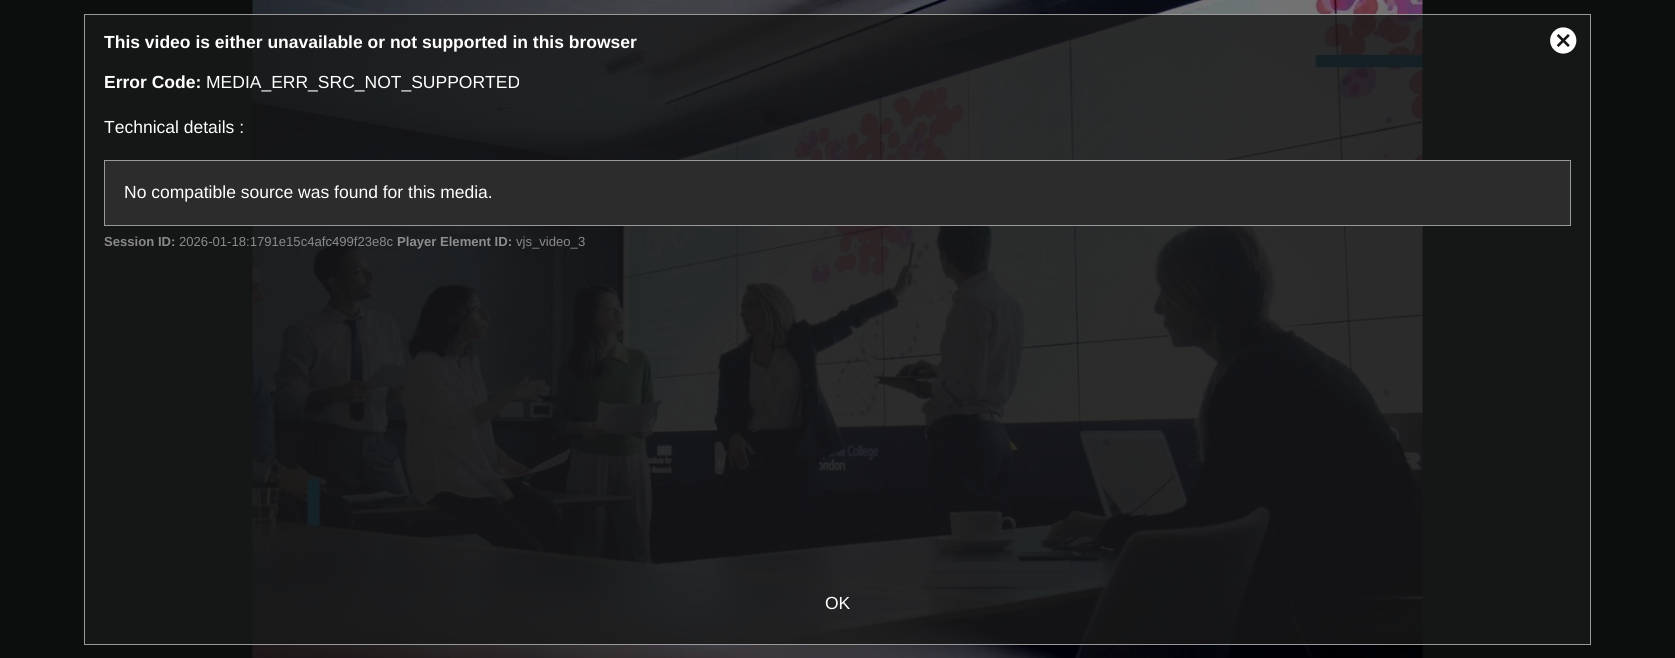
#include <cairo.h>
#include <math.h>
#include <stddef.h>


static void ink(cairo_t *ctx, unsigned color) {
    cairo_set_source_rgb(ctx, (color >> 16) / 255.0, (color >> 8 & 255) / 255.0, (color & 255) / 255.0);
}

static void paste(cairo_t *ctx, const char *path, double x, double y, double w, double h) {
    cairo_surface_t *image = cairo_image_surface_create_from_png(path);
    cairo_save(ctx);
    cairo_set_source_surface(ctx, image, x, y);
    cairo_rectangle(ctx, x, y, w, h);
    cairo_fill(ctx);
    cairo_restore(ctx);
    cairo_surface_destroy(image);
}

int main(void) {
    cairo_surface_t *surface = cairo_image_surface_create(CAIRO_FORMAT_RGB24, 1675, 658);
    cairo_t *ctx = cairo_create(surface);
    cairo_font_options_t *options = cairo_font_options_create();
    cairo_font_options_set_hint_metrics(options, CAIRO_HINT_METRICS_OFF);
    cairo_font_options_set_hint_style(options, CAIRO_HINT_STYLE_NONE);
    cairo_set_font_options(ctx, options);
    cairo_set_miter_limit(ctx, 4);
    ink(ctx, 0x0B0E0C);
    cairo_paint(ctx);
    ink(ctx, 0x151616);
    cairo_rectangle(ctx, 85, 15, 1505, 629);
    cairo_fill(ctx);
    paste(ctx, "media/1.png", 252, 0, 1171, 658);
    cairo_rectangle(ctx, 84.5, 14.5, 1506, 630);
    ink(ctx, 0x999999);
    cairo_set_line_width(ctx, 1);
    cairo_stroke(ctx);
    cairo_select_font_face(ctx, "Liberation Sans", CAIRO_FONT_SLANT_NORMAL, CAIRO_FONT_WEIGHT_BOLD);
    cairo_set_font_size(ctx, 17.5);
    ink(ctx, 0xFFFFFF);
    cairo_move_to(ctx, 104, 48);
    cairo_show_text(ctx, "This video is either unavailable or not supported in this browser");
    cairo_move_to(ctx, 104, 88);
    cairo_show_text(ctx, "Error Code:");
    cairo_select_font_face(ctx, "Liberation Sans", CAIRO_FONT_SLANT_NORMAL, CAIRO_FONT_WEIGHT_NORMAL);
    cairo_move_to(ctx, 206, 88);
    cairo_show_text(ctx, "MEDIA_ERR_SRC_NOT_SUPPORTED");
    cairo_move_to(ctx, 104, 133);
    cairo_show_text(ctx, "Technical details :");
    ink(ctx, 0x2C2C2C);
    cairo_rectangle(ctx, 104.5, 160.5, 1466, 65);
    cairo_fill_preserve(ctx);
    ink(ctx, 0x999999);
    cairo_stroke(ctx);
    ink(ctx, 0xFFFFFF);
    cairo_move_to(ctx, 124, 198);
    cairo_show_text(ctx, "No compatible source was found for this media.");
    cairo_select_font_face(ctx, "Liberation Sans", CAIRO_FONT_SLANT_NORMAL, CAIRO_FONT_WEIGHT_BOLD);
    cairo_set_font_size(ctx, 13.1);
    ink(ctx, 0x8A8A8A);
    cairo_move_to(ctx, 104, 246);
    cairo_show_text(ctx, "Session ID:");
    cairo_select_font_face(ctx, "Liberation Sans", CAIRO_FONT_SLANT_NORMAL, CAIRO_FONT_WEIGHT_NORMAL);
    cairo_move_to(ctx, 179, 246);
    cairo_show_text(ctx, "2026-01-18:1791e15c4afc499f23e8c");
    cairo_select_font_face(ctx, "Liberation Sans", CAIRO_FONT_SLANT_NORMAL, CAIRO_FONT_WEIGHT_BOLD);
    ink(ctx, 0x8D8E90);
    cairo_move_to(ctx, 397, 246);
    cairo_show_text(ctx, "Player Element ID:");
    cairo_select_font_face(ctx, "Liberation Sans", CAIRO_FONT_SLANT_NORMAL, CAIRO_FONT_WEIGHT_NORMAL);
    ink(ctx, 0x8A8A8A);
    cairo_move_to(ctx, 516, 246);
    cairo_show_text(ctx, "vjs_video_3");
    paste(ctx, "media/2.png", 1550, 27, 27, 27);
    cairo_set_font_size(ctx, 17.5);
    ink(ctx, 0xFFFFFF);
    cairo_move_to(ctx, 825, 609);
    cairo_show_text(ctx, "OK");
    cairo_surface_write_to_png(surface, "image.png");
    cairo_font_options_destroy(options);
    cairo_destroy(ctx);
    cairo_surface_destroy(surface);
    return 0;
}
